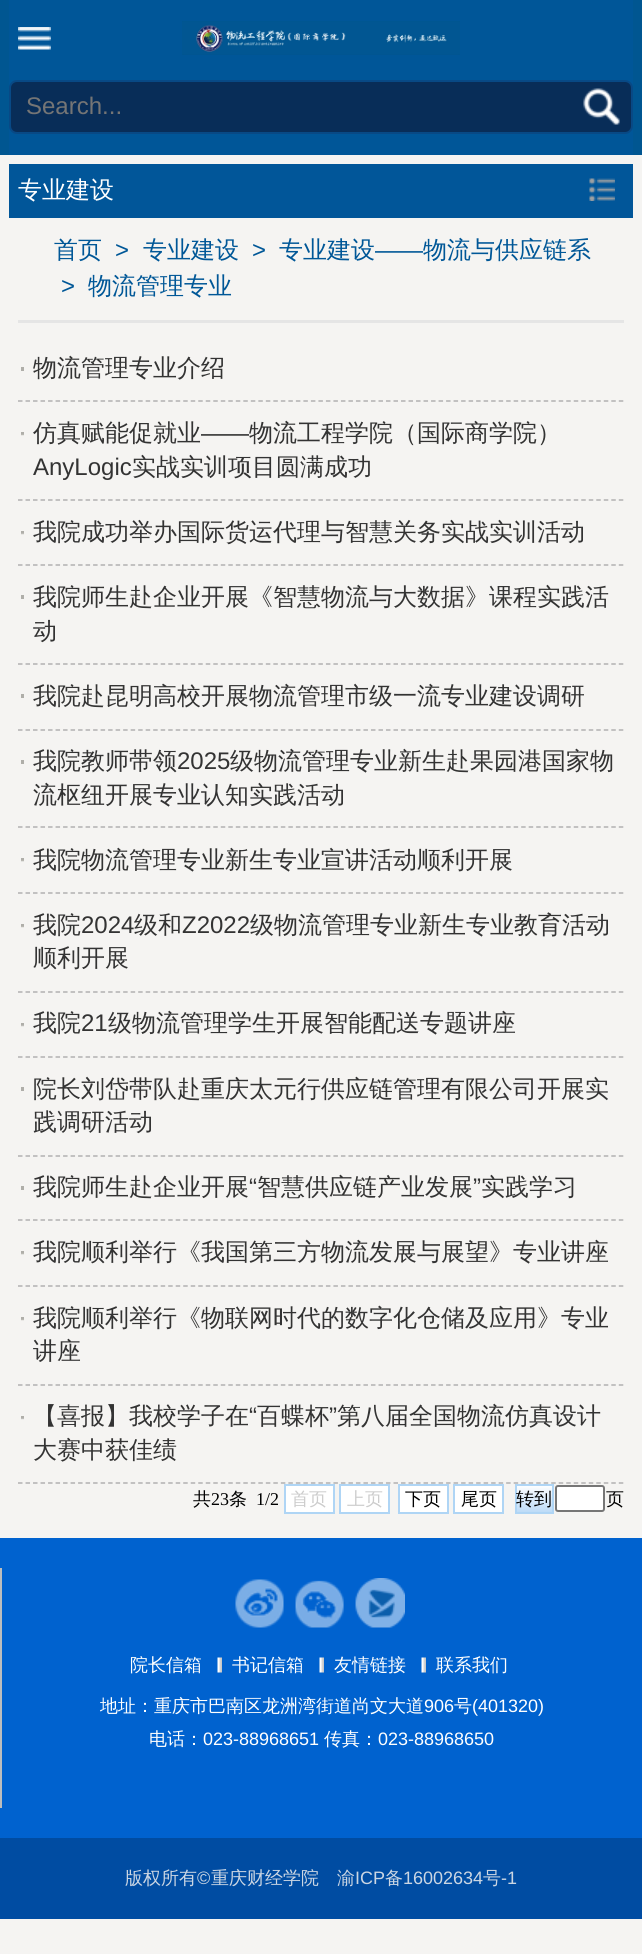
#include <cairo.h>
#include <math.h>
#include <stddef.h>


static void ink(cairo_t *ctx, unsigned color) {
    cairo_set_source_rgb(ctx, (color >> 16) / 255.0, (color >> 8 & 255) / 255.0, (color & 255) / 255.0);
}

static void round_path(cairo_t *ctx, double x, double y, double w, double h, double r) {
    cairo_new_sub_path(ctx);
    cairo_arc(ctx, x + w - r, y + h - r, r, 0, M_PI / 2);
    cairo_arc(ctx, x + r, y + h - r, r, M_PI / 2, M_PI);
    cairo_arc(ctx, x + r, y + r, r, M_PI, 1.5 * M_PI);
    cairo_arc(ctx, x + w - r, y + r, r, 1.5 * M_PI, 2 * M_PI);
    cairo_close_path(ctx);
}

static void paste(cairo_t *ctx, const char *path, double x, double y, double w, double h) {
    cairo_surface_t *image = cairo_image_surface_create_from_png(path);
    cairo_save(ctx);
    cairo_set_source_surface(ctx, image, x, y);
    cairo_rectangle(ctx, x, y, w, h);
    cairo_fill(ctx);
    cairo_restore(ctx);
    cairo_surface_destroy(image);
}

int main(void) {
    cairo_surface_t *surface = cairo_image_surface_create(CAIRO_FORMAT_RGB24, 642, 1954);
    cairo_t *ctx = cairo_create(surface);
    cairo_font_options_t *options = cairo_font_options_create();
    cairo_font_options_set_hint_metrics(options, CAIRO_HINT_METRICS_OFF);
    cairo_font_options_set_hint_style(options, CAIRO_HINT_STYLE_NONE);
    cairo_set_font_options(ctx, options);
    cairo_set_miter_limit(ctx, 4);
    cairo_pattern_t *gradient;
    ink(ctx, 0xF5F4F2);
    cairo_paint(ctx);
    ink(ctx, 0x005691);
    cairo_rectangle(ctx, 0, 0, 642, 155);
    cairo_fill(ctx);
    ink(ctx, 0x005698);
    cairo_rectangle(ctx, 9, 0, 624, 155);
    cairo_fill(ctx);
    paste(ctx, "media/1.png", 18, 27, 33, 23);
    paste(ctx, "media/2.png", 182, 21, 278, 34);
    ink(ctx, 0x082D58);
    round_path(ctx, 10, 81, 622, 52, 7);
    cairo_fill_preserve(ctx);
    ink(ctx, 0x084985);
    cairo_stroke(ctx);
    cairo_select_font_face(ctx, "Liberation Sans", CAIRO_FONT_SLANT_NORMAL, CAIRO_FONT_WEIGHT_NORMAL);
    cairo_set_font_size(ctx, 24);
    ink(ctx, 0x757575);
    cairo_move_to(ctx, 26, 114);
    cairo_show_text(ctx, "Search...");
    paste(ctx, "media/3.png", 583, 88, 37, 37);
    ink(ctx, 0x015699);
    cairo_rectangle(ctx, 9, 164, 624, 54);
    cairo_fill(ctx);
    cairo_select_font_face(ctx, "WenQuanYi Zen Hei Medium", CAIRO_FONT_SLANT_NORMAL, CAIRO_FONT_WEIGHT_NORMAL);
    ink(ctx, 0xFFFFFF);
    cairo_move_to(ctx, 18, 198);
    cairo_show_text(ctx, "专业建设");
    paste(ctx, "media/4.png", 589, 178, 26, 23);
    ink(ctx, 0xE5E5E5);
    cairo_rectangle(ctx, 18, 320, 606, 3);
    cairo_fill(ctx);
    ink(ctx, 0x005797);
    cairo_move_to(ctx, 54, 258);
    cairo_show_text(ctx, "首页");
    cairo_select_font_face(ctx, "Liberation Sans", CAIRO_FONT_SLANT_NORMAL, CAIRO_FONT_WEIGHT_NORMAL);
    cairo_move_to(ctx, 115, 258);
    cairo_show_text(ctx, ">");
    cairo_select_font_face(ctx, "WenQuanYi Zen Hei Medium", CAIRO_FONT_SLANT_NORMAL, CAIRO_FONT_WEIGHT_NORMAL);
    cairo_move_to(ctx, 143, 258);
    cairo_show_text(ctx, "专业建设");
    cairo_select_font_face(ctx, "Liberation Sans", CAIRO_FONT_SLANT_NORMAL, CAIRO_FONT_WEIGHT_NORMAL);
    cairo_move_to(ctx, 252, 258);
    cairo_show_text(ctx, ">");
    cairo_select_font_face(ctx, "WenQuanYi Zen Hei Medium", CAIRO_FONT_SLANT_NORMAL, CAIRO_FONT_WEIGHT_NORMAL);
    cairo_move_to(ctx, 279, 258);
    cairo_show_text(ctx, "专业建设");
    cairo_select_font_face(ctx, "Liberation Sans", CAIRO_FONT_SLANT_NORMAL, CAIRO_FONT_WEIGHT_NORMAL);
    cairo_move_to(ctx, 375, 258);
    cairo_show_text(ctx, "——");
    cairo_select_font_face(ctx, "WenQuanYi Zen Hei Medium", CAIRO_FONT_SLANT_NORMAL, CAIRO_FONT_WEIGHT_NORMAL);
    cairo_move_to(ctx, 423, 258);
    cairo_show_text(ctx, "物流与供应链系");
    cairo_select_font_face(ctx, "Liberation Sans", CAIRO_FONT_SLANT_NORMAL, CAIRO_FONT_WEIGHT_NORMAL);
    cairo_move_to(ctx, 61, 294);
    cairo_show_text(ctx, ">");
    cairo_select_font_face(ctx, "WenQuanYi Zen Hei Medium", CAIRO_FONT_SLANT_NORMAL, CAIRO_FONT_WEIGHT_NORMAL);
    cairo_move_to(ctx, 88, 294);
    cairo_show_text(ctx, "物流管理专业");
    ink(ctx, 0xAFAEA9);
    cairo_rectangle(ctx, 21, 367, 3, 4);
    cairo_fill(ctx);
    cairo_new_path(ctx);
    cairo_move_to(ctx, 18, 401);
    cairo_line_to(ctx, 624, 401);
    ink(ctx, 0xB1B1B1);
    cairo_set_line_width(ctx, 1.5);
    cairo_set_dash(ctx, (double[]){4.5, 3.01}, 2, 0);
    cairo_stroke(ctx);
    ink(ctx, 0x333333);
    cairo_move_to(ctx, 33, 376);
    cairo_show_text(ctx, "物流管理专业介绍");
    paste(ctx, "media/5.png", 21, 432, 3, 4);
    cairo_new_path(ctx);
    cairo_move_to(ctx, 18, 500);
    cairo_line_to(ctx, 624, 500);
    ink(ctx, 0xB1B1B1);
    cairo_stroke(ctx);
    ink(ctx, 0x333333);
    cairo_move_to(ctx, 33, 441);
    cairo_show_text(ctx, "仿真赋能促就业");
    cairo_select_font_face(ctx, "Liberation Sans", CAIRO_FONT_SLANT_NORMAL, CAIRO_FONT_WEIGHT_NORMAL);
    cairo_move_to(ctx, 201, 441);
    cairo_show_text(ctx, "——");
    cairo_select_font_face(ctx, "WenQuanYi Zen Hei Medium", CAIRO_FONT_SLANT_NORMAL, CAIRO_FONT_WEIGHT_NORMAL);
    cairo_move_to(ctx, 249, 441);
    cairo_show_text(ctx, "物流工程学院（国际商学院）");
    cairo_select_font_face(ctx, "Liberation Sans", CAIRO_FONT_SLANT_NORMAL, CAIRO_FONT_WEIGHT_NORMAL);
    cairo_move_to(ctx, 33, 475);
    cairo_show_text(ctx, "AnyLogic");
    cairo_select_font_face(ctx, "WenQuanYi Zen Hei Medium", CAIRO_FONT_SLANT_NORMAL, CAIRO_FONT_WEIGHT_NORMAL);
    cairo_move_to(ctx, 132, 475);
    cairo_show_text(ctx, "实战实训项目圆满成功");
    paste(ctx, "media/6.png", 21, 531, 3, 4);
    cairo_new_path(ctx);
    cairo_move_to(ctx, 18, 565);
    cairo_line_to(ctx, 624, 565);
    ink(ctx, 0xB1B1B1);
    cairo_stroke(ctx);
    ink(ctx, 0x333333);
    cairo_move_to(ctx, 33, 540);
    cairo_show_text(ctx, "我院成功举办国际货运代理与智慧关务实战实训活动");
    ink(ctx, 0xAFAEA9);
    cairo_rectangle(ctx, 21, 595, 3, 4);
    cairo_fill(ctx);
    cairo_new_path(ctx);
    cairo_move_to(ctx, 18, 664);
    cairo_line_to(ctx, 624, 664);
    ink(ctx, 0xB1B1B1);
    cairo_stroke(ctx);
    ink(ctx, 0x333333);
    cairo_move_to(ctx, 33, 605);
    cairo_show_text(ctx, "我院师生赴企业开展《智慧物流与大数据》课程实践活");
    cairo_move_to(ctx, 33, 639);
    cairo_show_text(ctx, "动");
    ink(ctx, 0xAFAEA9);
    cairo_rectangle(ctx, 21, 694, 3, 4);
    cairo_fill(ctx);
    cairo_new_path(ctx);
    cairo_move_to(ctx, 18, 730);
    cairo_line_to(ctx, 624, 730);
    ink(ctx, 0xB1B1B1);
    cairo_stroke(ctx);
    ink(ctx, 0x333333);
    cairo_move_to(ctx, 33, 704);
    cairo_show_text(ctx, "我院赴昆明高校开展物流管理市级一流专业建设调研");
    ink(ctx, 0xAFAEA9);
    cairo_rectangle(ctx, 21, 760, 3, 4);
    cairo_fill(ctx);
    cairo_new_path(ctx);
    cairo_move_to(ctx, 18, 827);
    cairo_line_to(ctx, 624, 827);
    ink(ctx, 0xB1B1B1);
    cairo_stroke(ctx);
    ink(ctx, 0x333333);
    cairo_move_to(ctx, 33, 769);
    cairo_show_text(ctx, "我院教师带领");
    cairo_select_font_face(ctx, "Liberation Sans", CAIRO_FONT_SLANT_NORMAL, CAIRO_FONT_WEIGHT_NORMAL);
    cairo_move_to(ctx, 177, 769);
    cairo_show_text(ctx, "2025");
    cairo_select_font_face(ctx, "WenQuanYi Zen Hei Medium", CAIRO_FONT_SLANT_NORMAL, CAIRO_FONT_WEIGHT_NORMAL);
    cairo_move_to(ctx, 230, 769);
    cairo_show_text(ctx, "级物流管理专业新生赴果园港国家物");
    cairo_move_to(ctx, 33, 803);
    cairo_show_text(ctx, "流枢纽开展专业认知实践活动");
    paste(ctx, "media/7.png", 21, 858, 3, 4);
    cairo_new_path(ctx);
    cairo_move_to(ctx, 18, 893);
    cairo_line_to(ctx, 624, 893);
    ink(ctx, 0xB1B1B1);
    cairo_stroke(ctx);
    ink(ctx, 0x333333);
    cairo_move_to(ctx, 33, 868);
    cairo_show_text(ctx, "我院物流管理专业新生专业宣讲活动顺利开展");
    paste(ctx, "media/5.png", 21, 924, 3, 4);
    cairo_new_path(ctx);
    cairo_move_to(ctx, 18, 992);
    cairo_line_to(ctx, 624, 992);
    ink(ctx, 0xB1B1B1);
    cairo_stroke(ctx);
    ink(ctx, 0x333333);
    cairo_move_to(ctx, 33, 933);
    cairo_show_text(ctx, "我院");
    cairo_select_font_face(ctx, "Liberation Sans", CAIRO_FONT_SLANT_NORMAL, CAIRO_FONT_WEIGHT_NORMAL);
    cairo_move_to(ctx, 81, 933);
    cairo_show_text(ctx, "2024");
    cairo_select_font_face(ctx, "WenQuanYi Zen Hei Medium", CAIRO_FONT_SLANT_NORMAL, CAIRO_FONT_WEIGHT_NORMAL);
    cairo_move_to(ctx, 134, 933);
    cairo_show_text(ctx, "级和");
    cairo_select_font_face(ctx, "Liberation Sans", CAIRO_FONT_SLANT_NORMAL, CAIRO_FONT_WEIGHT_NORMAL);
    cairo_move_to(ctx, 182, 933);
    cairo_show_text(ctx, "Z2022");
    cairo_select_font_face(ctx, "WenQuanYi Zen Hei Medium", CAIRO_FONT_SLANT_NORMAL, CAIRO_FONT_WEIGHT_NORMAL);
    cairo_move_to(ctx, 250, 933);
    cairo_show_text(ctx, "级物流管理专业新生专业教育活动");
    cairo_move_to(ctx, 33, 966);
    cairo_show_text(ctx, "顺利开展");
    paste(ctx, "media/6.png", 21, 1023, 3, 4);
    cairo_new_path(ctx);
    cairo_move_to(ctx, 18, 1057);
    cairo_line_to(ctx, 624, 1057);
    ink(ctx, 0xB1B1B1);
    cairo_stroke(ctx);
    ink(ctx, 0x333333);
    cairo_move_to(ctx, 33, 1031);
    cairo_show_text(ctx, "我院");
    cairo_select_font_face(ctx, "Liberation Sans", CAIRO_FONT_SLANT_NORMAL, CAIRO_FONT_WEIGHT_NORMAL);
    cairo_move_to(ctx, 81, 1031);
    cairo_show_text(ctx, "21");
    cairo_select_font_face(ctx, "WenQuanYi Zen Hei Medium", CAIRO_FONT_SLANT_NORMAL, CAIRO_FONT_WEIGHT_NORMAL);
    cairo_move_to(ctx, 108, 1031);
    cairo_show_text(ctx, "级物流管理学生开展智能配送专题讲座");
    ink(ctx, 0xAFAEA9);
    cairo_rectangle(ctx, 21, 1087, 3, 4);
    cairo_fill(ctx);
    cairo_new_path(ctx);
    cairo_move_to(ctx, 18, 1156);
    cairo_line_to(ctx, 624, 1156);
    ink(ctx, 0xB1B1B1);
    cairo_stroke(ctx);
    ink(ctx, 0x333333);
    cairo_move_to(ctx, 33, 1097);
    cairo_show_text(ctx, "院长刘岱带队赴重庆太元行供应链管理有限公司开展实");
    cairo_move_to(ctx, 33, 1130);
    cairo_show_text(ctx, "践调研活动");
    ink(ctx, 0xAFAEA9);
    cairo_rectangle(ctx, 21, 1186, 3, 4);
    cairo_fill(ctx);
    cairo_new_path(ctx);
    cairo_move_to(ctx, 18, 1220);
    cairo_line_to(ctx, 624, 1220);
    ink(ctx, 0xB1B1B1);
    cairo_stroke(ctx);
    ink(ctx, 0x333333);
    cairo_move_to(ctx, 33, 1195);
    cairo_show_text(ctx, "我院师生赴企业开展");
    cairo_select_font_face(ctx, "Liberation Sans", CAIRO_FONT_SLANT_NORMAL, CAIRO_FONT_WEIGHT_NORMAL);
    cairo_move_to(ctx, 249, 1195);
    cairo_show_text(ctx, "“");
    cairo_select_font_face(ctx, "WenQuanYi Zen Hei Medium", CAIRO_FONT_SLANT_NORMAL, CAIRO_FONT_WEIGHT_NORMAL);
    cairo_move_to(ctx, 257, 1195);
    cairo_show_text(ctx, "智慧供应链产业发展");
    cairo_select_font_face(ctx, "Liberation Sans", CAIRO_FONT_SLANT_NORMAL, CAIRO_FONT_WEIGHT_NORMAL);
    cairo_move_to(ctx, 473, 1195);
    cairo_show_text(ctx, "”");
    cairo_select_font_face(ctx, "WenQuanYi Zen Hei Medium", CAIRO_FONT_SLANT_NORMAL, CAIRO_FONT_WEIGHT_NORMAL);
    cairo_move_to(ctx, 481, 1195);
    cairo_show_text(ctx, "实践学习");
    paste(ctx, "media/7.png", 21, 1251, 3, 4);
    cairo_new_path(ctx);
    cairo_move_to(ctx, 18, 1286);
    cairo_line_to(ctx, 624, 1286);
    ink(ctx, 0xB1B1B1);
    cairo_stroke(ctx);
    ink(ctx, 0x333333);
    cairo_move_to(ctx, 33, 1260);
    cairo_show_text(ctx, "我院顺利举行《我国第三方物流发展与展望》专业讲座");
    paste(ctx, "media/5.png", 21, 1317, 3, 4);
    cairo_new_path(ctx);
    cairo_move_to(ctx, 18, 1385);
    cairo_line_to(ctx, 624, 1385);
    ink(ctx, 0xB1B1B1);
    cairo_stroke(ctx);
    ink(ctx, 0x333333);
    cairo_move_to(ctx, 33, 1326);
    cairo_show_text(ctx, "我院顺利举行《物联网时代的数字化仓储及应用》专业");
    cairo_move_to(ctx, 33, 1359);
    cairo_show_text(ctx, "讲座");
    paste(ctx, "media/8.png", 21, 1416, 3, 4);
    cairo_new_path(ctx);
    cairo_move_to(ctx, 18, 1483);
    cairo_line_to(ctx, 624, 1483);
    ink(ctx, 0xB1B1B1);
    cairo_stroke(ctx);
    ink(ctx, 0x333333);
    cairo_move_to(ctx, 33, 1424);
    cairo_show_text(ctx, "【喜报】我校学子在");
    cairo_select_font_face(ctx, "Liberation Sans", CAIRO_FONT_SLANT_NORMAL, CAIRO_FONT_WEIGHT_NORMAL);
    cairo_move_to(ctx, 249, 1424);
    cairo_show_text(ctx, "“");
    cairo_select_font_face(ctx, "WenQuanYi Zen Hei Medium", CAIRO_FONT_SLANT_NORMAL, CAIRO_FONT_WEIGHT_NORMAL);
    cairo_move_to(ctx, 257, 1424);
    cairo_show_text(ctx, "百蝶杯");
    cairo_select_font_face(ctx, "Liberation Sans", CAIRO_FONT_SLANT_NORMAL, CAIRO_FONT_WEIGHT_NORMAL);
    cairo_move_to(ctx, 329, 1424);
    cairo_show_text(ctx, "”");
    cairo_select_font_face(ctx, "WenQuanYi Zen Hei Medium", CAIRO_FONT_SLANT_NORMAL, CAIRO_FONT_WEIGHT_NORMAL);
    cairo_move_to(ctx, 337, 1424);
    cairo_show_text(ctx, "第八届全国物流仿真设计");
    cairo_move_to(ctx, 33, 1458);
    cairo_show_text(ctx, "大赛中获佳绩");
    cairo_set_font_size(ctx, 18);
    ink(ctx, 0x000000);
    cairo_move_to(ctx, 193, 1505);
    cairo_show_text(ctx, "共");
    cairo_select_font_face(ctx, "Liberation Serif", CAIRO_FONT_SLANT_NORMAL, CAIRO_FONT_WEIGHT_NORMAL);
    cairo_move_to(ctx, 211, 1505);
    cairo_show_text(ctx, "23");
    cairo_select_font_face(ctx, "WenQuanYi Zen Hei Medium", CAIRO_FONT_SLANT_NORMAL, CAIRO_FONT_WEIGHT_NORMAL);
    cairo_move_to(ctx, 229, 1505);
    cairo_show_text(ctx, "条");
    cairo_select_font_face(ctx, "Liberation Serif", CAIRO_FONT_SLANT_NORMAL, CAIRO_FONT_WEIGHT_NORMAL);
    cairo_move_to(ctx, 256, 1505);
    cairo_show_text(ctx, "1/2");
    ink(ctx, 0xFFFFFF);
    cairo_rectangle(ctx, 285, 1485, 49, 28);
    cairo_fill_preserve(ctx);
    ink(ctx, 0xAFD5F5);
    cairo_set_line_width(ctx, 2);
    cairo_set_dash(ctx, NULL, 0, 0);
    cairo_stroke(ctx);
    cairo_select_font_face(ctx, "WenQuanYi Zen Hei Medium", CAIRO_FONT_SLANT_NORMAL, CAIRO_FONT_WEIGHT_NORMAL);
    ink(ctx, 0xCCCCCC);
    cairo_move_to(ctx, 291, 1505);
    cairo_show_text(ctx, "首页");
    ink(ctx, 0xFFFFFF);
    cairo_rectangle(ctx, 340, 1485, 49, 28);
    cairo_fill_preserve(ctx);
    ink(ctx, 0xAFD5F5);
    cairo_stroke(ctx);
    ink(ctx, 0xCCCCCC);
    cairo_move_to(ctx, 347, 1505);
    cairo_show_text(ctx, "上页");
    ink(ctx, 0xFFFFFF);
    cairo_rectangle(ctx, 399, 1485, 49, 28);
    cairo_fill_preserve(ctx);
    ink(ctx, 0xAFD5F5);
    cairo_stroke(ctx);
    ink(ctx, 0x000000);
    cairo_move_to(ctx, 405, 1505);
    cairo_show_text(ctx, "下页");
    ink(ctx, 0xFFFFFF);
    cairo_rectangle(ctx, 454, 1485, 49, 28);
    cairo_fill_preserve(ctx);
    ink(ctx, 0xAFD5F5);
    cairo_stroke(ctx);
    ink(ctx, 0x000000);
    cairo_move_to(ctx, 461, 1505);
    cairo_show_text(ctx, "尾页");
    gradient = cairo_pattern_create_linear(516, 1485, 516, 1512);
    cairo_pattern_add_color_stop_rgba(gradient, 0, 1, 1, 1, 1);
    cairo_pattern_add_color_stop_rgba(gradient, 1, 0.741, 0.859, 0.969, 1);
    cairo_set_source(ctx, gradient);
    cairo_pattern_destroy(gradient);
    cairo_rectangle(ctx, 517, 1486, 35, 26);
    cairo_fill(ctx);
    cairo_rectangle(ctx, 516, 1485, 37, 28);
    ink(ctx, 0xAFD5F5);
    cairo_stroke(ctx);
    ink(ctx, 0x000000);
    cairo_move_to(ctx, 516, 1505);
    cairo_show_text(ctx, "转到");
    ink(ctx, 0xFFFFFF);
    round_path(ctx, 556, 1486, 48, 25, 2);
    cairo_fill_preserve(ctx);
    ink(ctx, 0x767676);
    cairo_stroke(ctx);
    ink(ctx, 0x000000);
    cairo_move_to(ctx, 606, 1505);
    cairo_show_text(ctx, "页");
    ink(ctx, 0x0062CF);
    cairo_rectangle(ctx, 0, 1538, 642, 300);
    cairo_fill(ctx);
    ink(ctx, 0xBDBDBD);
    cairo_rectangle(ctx, 0, 1568, 2, 240);
    cairo_fill(ctx);
    paste(ctx, "media/9.png", 235, 1579, 49, 49);
    paste(ctx, "media/10.png", 295, 1580, 49, 48);
    paste(ctx, "media/11.png", 355, 1578, 50, 50);
    ink(ctx, 0xFFFFFF);
    cairo_move_to(ctx, 130, 1671);
    cairo_show_text(ctx, "院长信箱");
    paste(ctx, "media/12.png", 217, 1657, 5, 16);
    cairo_move_to(ctx, 232, 1671);
    cairo_show_text(ctx, "书记信箱");
    paste(ctx, "media/12.png", 319, 1657, 5, 16);
    cairo_move_to(ctx, 334, 1671);
    cairo_show_text(ctx, "友情链接");
    paste(ctx, "media/12.png", 421, 1657, 5, 16);
    cairo_move_to(ctx, 436, 1671);
    cairo_show_text(ctx, "联系我们");
    cairo_move_to(ctx, 100, 1712);
    cairo_show_text(ctx, "地址：重庆市巴南区龙洲湾街道尚文大道");
    cairo_select_font_face(ctx, "Liberation Sans", CAIRO_FONT_SLANT_NORMAL, CAIRO_FONT_WEIGHT_NORMAL);
    cairo_move_to(ctx, 424, 1712);
    cairo_show_text(ctx, "906");
    cairo_select_font_face(ctx, "WenQuanYi Zen Hei Medium", CAIRO_FONT_SLANT_NORMAL, CAIRO_FONT_WEIGHT_NORMAL);
    cairo_move_to(ctx, 454, 1712);
    cairo_show_text(ctx, "号");
    cairo_select_font_face(ctx, "Liberation Sans", CAIRO_FONT_SLANT_NORMAL, CAIRO_FONT_WEIGHT_NORMAL);
    cairo_move_to(ctx, 472, 1712);
    cairo_show_text(ctx, "(401320)");
    cairo_select_font_face(ctx, "WenQuanYi Zen Hei Medium", CAIRO_FONT_SLANT_NORMAL, CAIRO_FONT_WEIGHT_NORMAL);
    cairo_move_to(ctx, 149, 1745);
    cairo_show_text(ctx, "电话：");
    cairo_select_font_face(ctx, "Liberation Sans", CAIRO_FONT_SLANT_NORMAL, CAIRO_FONT_WEIGHT_NORMAL);
    cairo_move_to(ctx, 203, 1745);
    cairo_show_text(ctx, "023-88968651");
    cairo_select_font_face(ctx, "WenQuanYi Zen Hei Medium", CAIRO_FONT_SLANT_NORMAL, CAIRO_FONT_WEIGHT_NORMAL);
    cairo_move_to(ctx, 324, 1745);
    cairo_show_text(ctx, "传真：");
    cairo_select_font_face(ctx, "Liberation Sans", CAIRO_FONT_SLANT_NORMAL, CAIRO_FONT_WEIGHT_NORMAL);
    cairo_move_to(ctx, 378, 1745);
    cairo_show_text(ctx, "023-88968650");
    ink(ctx, 0x004CA2);
    cairo_rectangle(ctx, 0, 1838, 642, 81);
    cairo_fill(ctx);
    cairo_select_font_face(ctx, "WenQuanYi Zen Hei Medium", CAIRO_FONT_SLANT_NORMAL, CAIRO_FONT_WEIGHT_NORMAL);
    ink(ctx, 0xCBD6E3);
    cairo_move_to(ctx, 125, 1884);
    cairo_show_text(ctx, "版权所有");
    cairo_select_font_face(ctx, "Liberation Sans", CAIRO_FONT_SLANT_NORMAL, CAIRO_FONT_WEIGHT_NORMAL);
    cairo_move_to(ctx, 197, 1884);
    cairo_show_text(ctx, "©");
    cairo_select_font_face(ctx, "WenQuanYi Zen Hei Medium", CAIRO_FONT_SLANT_NORMAL, CAIRO_FONT_WEIGHT_NORMAL);
    cairo_move_to(ctx, 211, 1884);
    cairo_show_text(ctx, "重庆财经学院　渝");
    cairo_select_font_face(ctx, "Liberation Sans", CAIRO_FONT_SLANT_NORMAL, CAIRO_FONT_WEIGHT_NORMAL);
    cairo_move_to(ctx, 355, 1884);
    cairo_show_text(ctx, "ICP");
    cairo_select_font_face(ctx, "WenQuanYi Zen Hei Medium", CAIRO_FONT_SLANT_NORMAL, CAIRO_FONT_WEIGHT_NORMAL);
    cairo_move_to(ctx, 385, 1884);
    cairo_show_text(ctx, "备");
    cairo_select_font_face(ctx, "Liberation Sans", CAIRO_FONT_SLANT_NORMAL, CAIRO_FONT_WEIGHT_NORMAL);
    cairo_move_to(ctx, 403, 1884);
    cairo_show_text(ctx, "16002634");
    cairo_select_font_face(ctx, "WenQuanYi Zen Hei Medium", CAIRO_FONT_SLANT_NORMAL, CAIRO_FONT_WEIGHT_NORMAL);
    cairo_move_to(ctx, 483, 1884);
    cairo_show_text(ctx, "号");
    cairo_select_font_face(ctx, "Liberation Sans", CAIRO_FONT_SLANT_NORMAL, CAIRO_FONT_WEIGHT_NORMAL);
    cairo_move_to(ctx, 501, 1884);
    cairo_show_text(ctx, "-1");
    cairo_surface_write_to_png(surface, "image.png");
    cairo_font_options_destroy(options);
    cairo_destroy(ctx);
    cairo_surface_destroy(surface);
    return 0;
}
